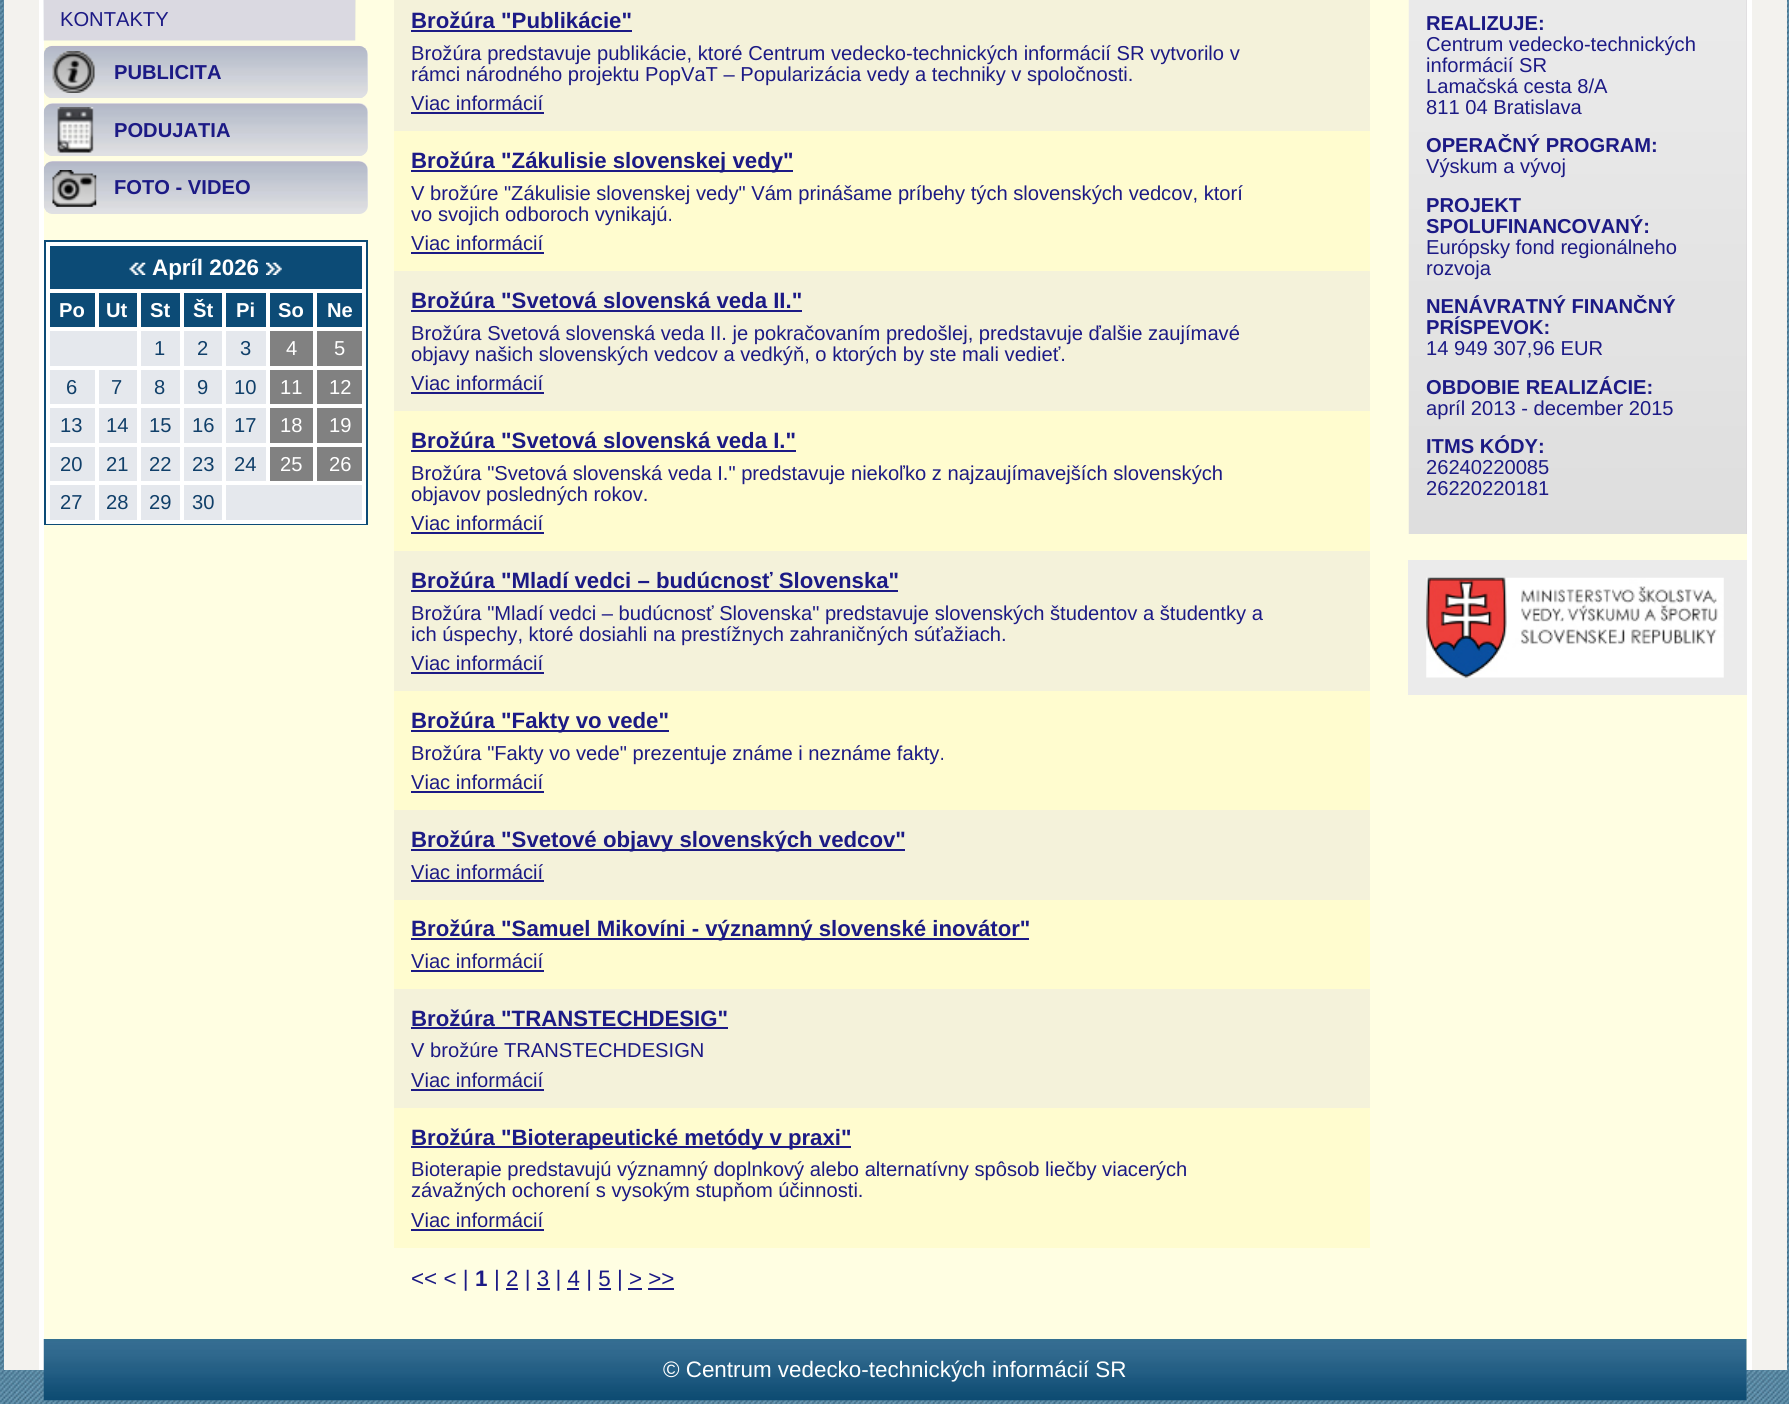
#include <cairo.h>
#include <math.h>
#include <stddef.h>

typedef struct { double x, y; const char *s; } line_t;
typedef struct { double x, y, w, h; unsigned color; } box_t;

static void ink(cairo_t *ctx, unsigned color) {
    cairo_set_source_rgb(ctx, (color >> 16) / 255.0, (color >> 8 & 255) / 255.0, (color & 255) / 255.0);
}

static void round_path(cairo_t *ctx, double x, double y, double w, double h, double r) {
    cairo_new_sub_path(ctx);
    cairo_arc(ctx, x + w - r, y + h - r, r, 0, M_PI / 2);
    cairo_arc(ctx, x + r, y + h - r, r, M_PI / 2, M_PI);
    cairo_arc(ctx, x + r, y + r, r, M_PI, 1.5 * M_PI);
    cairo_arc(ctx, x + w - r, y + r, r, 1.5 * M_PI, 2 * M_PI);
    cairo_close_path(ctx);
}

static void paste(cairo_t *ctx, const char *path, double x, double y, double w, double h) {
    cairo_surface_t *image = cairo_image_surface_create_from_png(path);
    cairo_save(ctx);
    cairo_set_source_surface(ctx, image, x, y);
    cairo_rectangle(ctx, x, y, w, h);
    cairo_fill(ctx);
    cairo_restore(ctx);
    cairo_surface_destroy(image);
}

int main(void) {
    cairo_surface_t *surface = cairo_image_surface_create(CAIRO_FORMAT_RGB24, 1789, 1404);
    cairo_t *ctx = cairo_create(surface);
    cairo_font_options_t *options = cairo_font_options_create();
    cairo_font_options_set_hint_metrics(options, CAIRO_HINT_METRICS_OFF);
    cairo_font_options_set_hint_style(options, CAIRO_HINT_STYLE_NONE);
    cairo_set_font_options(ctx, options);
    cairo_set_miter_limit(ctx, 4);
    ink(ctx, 0xFFFFFF);
    cairo_paint(ctx);
    paste(ctx, "media/1.png", 0, 0, 1789, 1404);
    {
        static const box_t items[] = {
            {39, 0, 1713, 1370, 0xFFFFFF},
            {1752, 0, 35, 1370, 0xF3F2EE},
            {4, 0, 35, 1370, 0xF3F2EE},
            {44, 0, 1703, 1370, 0xFFFEE2},
        };
        for (size_t i = 0; i < sizeof items / sizeof *items; i++) {
            ink(ctx, items[i].color);
            cairo_rectangle(ctx, items[i].x, items[i].y, items[i].w, items[i].h);
            cairo_fill(ctx);
        }
    }
    paste(ctx, "media/2.png", 43, 0, 313, 41);
    ink(ctx, 0xDAD9E1);
    cairo_rectangle(ctx, 44, 0, 311, 40);
    cairo_fill(ctx);
    cairo_select_font_face(ctx, "Liberation Sans", CAIRO_FONT_SLANT_NORMAL, CAIRO_FONT_WEIGHT_NORMAL);
    cairo_set_font_size(ctx, 20.15);
    ink(ctx, 0x1C1A85);
    cairo_move_to(ctx, 60, 26);
    cairo_show_text(ctx, "KONTAKTY");
    ink(ctx, 0xE1E1E3);
    round_path(ctx, 44, 46, 324, 52, 9);
    cairo_fill(ctx);
    paste(ctx, "media/3.png", 43, 45, 325, 53);
    paste(ctx, "media/4.png", 52, 51, 43, 42);
    cairo_select_font_face(ctx, "Liberation Sans", CAIRO_FONT_SLANT_NORMAL, CAIRO_FONT_WEIGHT_BOLD);
    ink(ctx, 0x1C1A85);
    cairo_move_to(ctx, 114, 79);
    cairo_show_text(ctx, "PUBLICITA");
    ink(ctx, 0xE1E1E3);
    round_path(ctx, 44, 103, 324, 53, 9);
    cairo_fill(ctx);
    paste(ctx, "media/5.png", 43, 103, 325, 53);
    paste(ctx, "media/6.png", 57, 107, 37, 46);
    ink(ctx, 0x1C1A85);
    cairo_move_to(ctx, 114, 137);
    cairo_show_text(ctx, "PODUJATIA");
    ink(ctx, 0xE1E1E3);
    round_path(ctx, 44, 161, 324, 53, 9);
    cairo_fill(ctx);
    paste(ctx, "media/7.png", 43, 161, 325, 53);
    paste(ctx, "media/8.png", 52, 170, 45, 37);
    ink(ctx, 0x1C1A85);
    cairo_move_to(ctx, 114, 194);
    cairo_show_text(ctx, "FOTO - VIDEO");
    cairo_rectangle(ctx, 45, 241, 322, 283);
    ink(ctx, 0x0C4B76);
    cairo_stroke(ctx);
    {
        static const box_t items[] = {
            {50, 246, 312, 43, 0x0C4B76},
            {46, 242, 320, 4, 0xFFFFFF},
            {362, 242, 4, 47, 0xFFFFFF},
            {46, 242, 4, 47, 0xFFFFFF},
        };
        for (size_t i = 0; i < sizeof items / sizeof *items; i++) {
            ink(ctx, items[i].color);
            cairo_rectangle(ctx, items[i].x, items[i].y, items[i].w, items[i].h);
            cairo_fill(ctx);
        }
    }
    paste(ctx, "media/9.png", 129, 262, 17, 13);
    cairo_set_font_size(ctx, 22.4);
    cairo_move_to(ctx, 152, 275);
    cairo_show_text(ctx, "Apríl 2026");
    paste(ctx, "media/10.png", 266, 262, 16, 13);
    {
        static const box_t items[] = {
            {50, 293, 45, 34, 0x0C4B76},
            {313, 289, 53, 4, 0xFFFFFF},
            {313, 327, 53, 4, 0xFFFFFF},
            {313, 366, 53, 4, 0xFFFFFF},
            {313, 404, 53, 4, 0xFFFFFF},
            {313, 443, 53, 4, 0xFFFFFF},
            {222, 481, 144, 4, 0xFFFFFF},
            {313, 443, 4, 42, 0xFFFFFF},
            {266, 443, 51, 4, 0xFFFFFF},
            {313, 404, 4, 42, 0xFFFFFF},
            {266, 404, 51, 4, 0xFFFFFF},
            {313, 366, 4, 42, 0xFFFFFF},
            {266, 366, 51, 4, 0xFFFFFF},
            {313, 327, 4, 42, 0xFFFFFF},
            {266, 327, 51, 4, 0xFFFFFF},
            {313, 289, 4, 42, 0xFFFFFF},
            {266, 289, 51, 4, 0xFFFFFF},
            {266, 443, 4, 42, 0xFFFFFF},
            {222, 443, 48, 4, 0xFFFFFF},
            {266, 404, 4, 42, 0xFFFFFF},
            {222, 404, 48, 4, 0xFFFFFF},
            {266, 366, 4, 42, 0xFFFFFF},
            {222, 366, 48, 4, 0xFFFFFF},
            {266, 327, 4, 42, 0xFFFFFF},
            {222, 327, 48, 4, 0xFFFFFF},
            {266, 289, 4, 42, 0xFFFFFF},
            {222, 289, 48, 4, 0xFFFFFF},
            {362, 481, 4, 42, 0xFFFFFF},
            {222, 520, 144, 4, 0xFFFFFF},
            {222, 481, 4, 42, 0xFFFFFF},
            {180, 481, 46, 4, 0xFFFFFF},
            {222, 443, 4, 42, 0xFFFFFF},
            {180, 443, 46, 4, 0xFFFFFF},
            {222, 404, 4, 42, 0xFFFFFF},
            {180, 404, 46, 4, 0xFFFFFF},
            {222, 366, 4, 42, 0xFFFFFF},
            {180, 366, 46, 4, 0xFFFFFF},
            {222, 327, 4, 42, 0xFFFFFF},
            {180, 327, 46, 4, 0xFFFFFF},
            {222, 289, 4, 42, 0xFFFFFF},
            {180, 289, 46, 4, 0xFFFFFF},
            {180, 520, 46, 4, 0xFFFFFF},
            {180, 481, 4, 42, 0xFFFFFF},
            {137, 481, 47, 4, 0xFFFFFF},
            {180, 443, 4, 42, 0xFFFFFF},
            {137, 443, 47, 4, 0xFFFFFF},
            {180, 404, 4, 42, 0xFFFFFF},
            {137, 404, 47, 4, 0xFFFFFF},
            {180, 366, 4, 42, 0xFFFFFF},
            {137, 366, 47, 4, 0xFFFFFF},
            {180, 327, 4, 42, 0xFFFFFF},
            {137, 327, 47, 4, 0xFFFFFF},
            {180, 289, 4, 42, 0xFFFFFF},
            {137, 289, 47, 4, 0xFFFFFF},
            {137, 520, 47, 4, 0xFFFFFF},
            {137, 481, 4, 42, 0xFFFFFF},
            {95, 481, 45, 4, 0xFFFFFF},
            {137, 443, 4, 42, 0xFFFFFF},
            {95, 443, 45, 4, 0xFFFFFF},
            {137, 404, 4, 42, 0xFFFFFF},
            {95, 404, 45, 4, 0xFFFFFF},
            {137, 366, 4, 42, 0xFFFFFF},
            {95, 366, 45, 4, 0xFFFFFF},
            {137, 327, 4, 42, 0xFFFFFF},
            {46, 327, 94, 4, 0xFFFFFF},
            {137, 289, 4, 42, 0xFFFFFF},
            {95, 289, 45, 4, 0xFFFFFF},
            {95, 289, 4, 42, 0xFFFFFF},
            {46, 289, 52, 4, 0xFFFFFF},
            {95, 520, 45, 4, 0xFFFFFF},
            {95, 481, 4, 42, 0xFFFFFF},
            {46, 481, 52, 4, 0xFFFFFF},
            {95, 443, 4, 42, 0xFFFFFF},
            {46, 443, 52, 4, 0xFFFFFF},
            {95, 404, 4, 42, 0xFFFFFF},
            {46, 404, 52, 4, 0xFFFFFF},
            {95, 366, 4, 42, 0xFFFFFF},
            {46, 366, 52, 4, 0xFFFFFF},
            {46, 520, 52, 4, 0xFFFFFF},
            {46, 481, 4, 42, 0xFFFFFF},
            {46, 443, 4, 42, 0xFFFFFF},
            {46, 404, 4, 42, 0xFFFFFF},
            {46, 366, 4, 42, 0xFFFFFF},
            {46, 327, 4, 42, 0xFFFFFF},
            {46, 289, 4, 42, 0xFFFFFF},
        };
        for (size_t i = 0; i < sizeof items / sizeof *items; i++) {
            ink(ctx, items[i].color);
            cairo_rectangle(ctx, items[i].x, items[i].y, items[i].w, items[i].h);
            cairo_fill(ctx);
        }
    }
    cairo_set_font_size(ctx, 20.15);
    cairo_move_to(ctx, 59, 317);
    cairo_show_text(ctx, "Po");
    ink(ctx, 0x0C4B76);
    cairo_rectangle(ctx, 99, 293, 38, 34);
    cairo_fill(ctx);
    ink(ctx, 0xFFFFFF);
    cairo_move_to(ctx, 106, 317);
    cairo_show_text(ctx, "Ut");
    ink(ctx, 0x0C4B76);
    cairo_rectangle(ctx, 141, 293, 39, 34);
    cairo_fill(ctx);
    ink(ctx, 0xFFFFFF);
    cairo_move_to(ctx, 150, 317);
    cairo_show_text(ctx, "St");
    ink(ctx, 0x0C4B76);
    cairo_rectangle(ctx, 184, 293, 38, 34);
    cairo_fill(ctx);
    ink(ctx, 0xFFFFFF);
    cairo_move_to(ctx, 193, 317);
    cairo_show_text(ctx, "Št");
    ink(ctx, 0x0C4B76);
    cairo_rectangle(ctx, 226, 293, 40, 34);
    cairo_fill(ctx);
    ink(ctx, 0xFFFFFF);
    cairo_move_to(ctx, 236, 317);
    cairo_show_text(ctx, "Pi");
    ink(ctx, 0x0C4B76);
    cairo_rectangle(ctx, 270, 293, 43, 34);
    cairo_fill(ctx);
    ink(ctx, 0xFFFFFF);
    cairo_move_to(ctx, 278, 317);
    cairo_show_text(ctx, "So");
    {
        static const box_t items[] = {
            {317, 293, 45, 34, 0x0C4B76},
            {362, 443, 4, 42, 0xFFFFFF},
            {362, 404, 4, 42, 0xFFFFFF},
            {362, 366, 4, 42, 0xFFFFFF},
            {362, 327, 4, 42, 0xFFFFFF},
            {362, 289, 4, 42, 0xFFFFFF},
        };
        for (size_t i = 0; i < sizeof items / sizeof *items; i++) {
            ink(ctx, items[i].color);
            cairo_rectangle(ctx, items[i].x, items[i].y, items[i].w, items[i].h);
            cairo_fill(ctx);
        }
    }
    cairo_move_to(ctx, 327, 317);
    cairo_show_text(ctx, "Ne");
    ink(ctx, 0xE5E8ED);
    cairo_rectangle(ctx, 50, 331, 87, 35);
    cairo_fill(ctx);
    cairo_rectangle(ctx, 141, 331, 39, 35);
    cairo_fill(ctx);
    cairo_select_font_face(ctx, "Liberation Sans", CAIRO_FONT_SLANT_NORMAL, CAIRO_FONT_WEIGHT_NORMAL);
    ink(ctx, 0x103F69);
    cairo_move_to(ctx, 154, 355);
    cairo_show_text(ctx, "1");
    ink(ctx, 0xE5E8ED);
    cairo_rectangle(ctx, 184, 331, 38, 35);
    cairo_fill(ctx);
    ink(ctx, 0x103F69);
    cairo_move_to(ctx, 197, 355);
    cairo_show_text(ctx, "2");
    ink(ctx, 0xE5E8ED);
    cairo_rectangle(ctx, 226, 331, 40, 35);
    cairo_fill(ctx);
    ink(ctx, 0x103F69);
    cairo_move_to(ctx, 240, 355);
    cairo_show_text(ctx, "3");
    ink(ctx, 0x818181);
    cairo_rectangle(ctx, 270, 331, 43, 35);
    cairo_fill(ctx);
    ink(ctx, 0xFFFFFF);
    cairo_move_to(ctx, 286, 355);
    cairo_show_text(ctx, "4");
    ink(ctx, 0x818181);
    cairo_rectangle(ctx, 317, 331, 45, 35);
    cairo_fill(ctx);
    ink(ctx, 0xFFFFFF);
    cairo_move_to(ctx, 334, 355);
    cairo_show_text(ctx, "5");
    ink(ctx, 0xE5E8ED);
    cairo_rectangle(ctx, 50, 370, 45, 34);
    cairo_fill(ctx);
    ink(ctx, 0x103F69);
    cairo_move_to(ctx, 66, 394);
    cairo_show_text(ctx, "6");
    ink(ctx, 0xE5E8ED);
    cairo_rectangle(ctx, 99, 370, 38, 34);
    cairo_fill(ctx);
    ink(ctx, 0x103F69);
    cairo_move_to(ctx, 111, 394);
    cairo_show_text(ctx, "7");
    ink(ctx, 0xE5E8ED);
    cairo_rectangle(ctx, 141, 370, 39, 34);
    cairo_fill(ctx);
    ink(ctx, 0x103F69);
    cairo_move_to(ctx, 154, 394);
    cairo_show_text(ctx, "8");
    ink(ctx, 0xE5E8ED);
    cairo_rectangle(ctx, 184, 370, 38, 34);
    cairo_fill(ctx);
    ink(ctx, 0x103F69);
    cairo_move_to(ctx, 197, 394);
    cairo_show_text(ctx, "9");
    ink(ctx, 0xE5E8ED);
    cairo_rectangle(ctx, 226, 370, 40, 34);
    cairo_fill(ctx);
    ink(ctx, 0x103F69);
    cairo_move_to(ctx, 234, 394);
    cairo_show_text(ctx, "10");
    ink(ctx, 0x818181);
    cairo_rectangle(ctx, 270, 370, 43, 34);
    cairo_fill(ctx);
    ink(ctx, 0xFFFFFF);
    cairo_move_to(ctx, 280, 394);
    cairo_show_text(ctx, "11");
    ink(ctx, 0x818181);
    cairo_rectangle(ctx, 317, 370, 45, 34);
    cairo_fill(ctx);
    ink(ctx, 0xFFFFFF);
    cairo_move_to(ctx, 329, 394);
    cairo_show_text(ctx, "12");
    ink(ctx, 0xE5E8ED);
    cairo_rectangle(ctx, 50, 408, 45, 35);
    cairo_fill(ctx);
    ink(ctx, 0x103F69);
    cairo_move_to(ctx, 60, 432);
    cairo_show_text(ctx, "13");
    ink(ctx, 0xE5E8ED);
    cairo_rectangle(ctx, 99, 408, 38, 35);
    cairo_fill(ctx);
    ink(ctx, 0x103F69);
    cairo_move_to(ctx, 106, 432);
    cairo_show_text(ctx, "14");
    ink(ctx, 0xE5E8ED);
    cairo_rectangle(ctx, 141, 408, 39, 35);
    cairo_fill(ctx);
    ink(ctx, 0x103F69);
    cairo_move_to(ctx, 149, 432);
    cairo_show_text(ctx, "15");
    ink(ctx, 0xE5E8ED);
    cairo_rectangle(ctx, 184, 408, 38, 35);
    cairo_fill(ctx);
    ink(ctx, 0x103F69);
    cairo_move_to(ctx, 192, 432);
    cairo_show_text(ctx, "16");
    ink(ctx, 0xE5E8ED);
    cairo_rectangle(ctx, 226, 408, 40, 35);
    cairo_fill(ctx);
    ink(ctx, 0x103F69);
    cairo_move_to(ctx, 234, 432);
    cairo_show_text(ctx, "17");
    ink(ctx, 0x818181);
    cairo_rectangle(ctx, 270, 408, 43, 35);
    cairo_fill(ctx);
    ink(ctx, 0xFFFFFF);
    cairo_move_to(ctx, 280, 432);
    cairo_show_text(ctx, "18");
    ink(ctx, 0x818181);
    cairo_rectangle(ctx, 317, 408, 45, 35);
    cairo_fill(ctx);
    ink(ctx, 0xFFFFFF);
    cairo_move_to(ctx, 329, 432);
    cairo_show_text(ctx, "19");
    ink(ctx, 0xE5E8ED);
    cairo_rectangle(ctx, 50, 447, 45, 34);
    cairo_fill(ctx);
    ink(ctx, 0x103F69);
    cairo_move_to(ctx, 60, 471);
    cairo_show_text(ctx, "20");
    ink(ctx, 0xE5E8ED);
    cairo_rectangle(ctx, 99, 447, 38, 34);
    cairo_fill(ctx);
    ink(ctx, 0x103F69);
    cairo_move_to(ctx, 106, 471);
    cairo_show_text(ctx, "21");
    ink(ctx, 0xE5E8ED);
    cairo_rectangle(ctx, 141, 447, 39, 34);
    cairo_fill(ctx);
    ink(ctx, 0x103F69);
    cairo_move_to(ctx, 149, 471);
    cairo_show_text(ctx, "22");
    ink(ctx, 0xE5E8ED);
    cairo_rectangle(ctx, 184, 447, 38, 34);
    cairo_fill(ctx);
    ink(ctx, 0x103F69);
    cairo_move_to(ctx, 192, 471);
    cairo_show_text(ctx, "23");
    ink(ctx, 0xE5E8ED);
    cairo_rectangle(ctx, 226, 447, 40, 34);
    cairo_fill(ctx);
    ink(ctx, 0x103F69);
    cairo_move_to(ctx, 234, 471);
    cairo_show_text(ctx, "24");
    ink(ctx, 0x818181);
    cairo_rectangle(ctx, 270, 447, 43, 34);
    cairo_fill(ctx);
    ink(ctx, 0xFFFFFF);
    cairo_move_to(ctx, 280, 471);
    cairo_show_text(ctx, "25");
    ink(ctx, 0x818181);
    cairo_rectangle(ctx, 317, 447, 45, 34);
    cairo_fill(ctx);
    ink(ctx, 0xFFFFFF);
    cairo_move_to(ctx, 329, 471);
    cairo_show_text(ctx, "26");
    ink(ctx, 0xE5E8ED);
    cairo_rectangle(ctx, 50, 485, 45, 35);
    cairo_fill(ctx);
    ink(ctx, 0x103F69);
    cairo_move_to(ctx, 60, 509);
    cairo_show_text(ctx, "27");
    ink(ctx, 0xE5E8ED);
    cairo_rectangle(ctx, 99, 485, 38, 35);
    cairo_fill(ctx);
    ink(ctx, 0x103F69);
    cairo_move_to(ctx, 106, 509);
    cairo_show_text(ctx, "28");
    ink(ctx, 0xE5E8ED);
    cairo_rectangle(ctx, 141, 485, 39, 35);
    cairo_fill(ctx);
    ink(ctx, 0x103F69);
    cairo_move_to(ctx, 149, 509);
    cairo_show_text(ctx, "29");
    ink(ctx, 0xE5E8ED);
    cairo_rectangle(ctx, 184, 485, 38, 35);
    cairo_fill(ctx);
    ink(ctx, 0x103F69);
    cairo_move_to(ctx, 192, 509);
    cairo_show_text(ctx, "30");
    ink(ctx, 0xE5E8ED);
    cairo_rectangle(ctx, 226, 485, 136, 35);
    cairo_fill(ctx);
    ink(ctx, 0xF4F2DA);
    cairo_rectangle(ctx, 394, 0, 976, 131);
    cairo_fill(ctx);
    cairo_select_font_face(ctx, "Liberation Sans", CAIRO_FONT_SLANT_NORMAL, CAIRO_FONT_WEIGHT_BOLD);
    cairo_set_font_size(ctx, 22.2);
    ink(ctx, 0x1C1A85);
    cairo_move_to(ctx, 411, 28);
    cairo_show_text(ctx, "Brožúra \"Publikácie\"");
    cairo_rectangle(ctx, 411, 30, 221, 2);
    cairo_fill(ctx);
    cairo_select_font_face(ctx, "Liberation Sans", CAIRO_FONT_SLANT_NORMAL, CAIRO_FONT_WEIGHT_NORMAL);
    cairo_set_font_size(ctx, 20.15);
    {
        static const line_t items[] = {
            {411, 60, "Brožúra predstavuje publikácie, ktoré Centrum vedecko-technických informácií SR vytvorilo v"},
            {411, 81, "rámci národného projektu PopVaT – Popularizácia vedy a techniky v spoločnosti."},
            {411, 110, "Viac informácií"},
        };
        for (size_t i = 0; i < sizeof items / sizeof *items; i++) {
            cairo_move_to(ctx, items[i].x, items[i].y);
            cairo_show_text(ctx, items[i].s);
        }
    }
    {
        static const box_t items[] = {
            {411, 112, 133, 2, 0x1C1A85},
            {394, 131, 976, 140, 0xFFFCCF},
            {411, 170, 382, 2, 0x1C1A85},
        };
        for (size_t i = 0; i < sizeof items / sizeof *items; i++) {
            ink(ctx, items[i].color);
            cairo_rectangle(ctx, items[i].x, items[i].y, items[i].w, items[i].h);
            cairo_fill(ctx);
        }
    }
    cairo_select_font_face(ctx, "Liberation Sans", CAIRO_FONT_SLANT_NORMAL, CAIRO_FONT_WEIGHT_BOLD);
    cairo_set_font_size(ctx, 22.2);
    cairo_move_to(ctx, 411, 168);
    cairo_show_text(ctx, "Brožúra \"Zákulisie slovenskej vedy\"");
    cairo_select_font_face(ctx, "Liberation Sans", CAIRO_FONT_SLANT_NORMAL, CAIRO_FONT_WEIGHT_NORMAL);
    cairo_set_font_size(ctx, 20.15);
    {
        static const line_t items[] = {
            {411, 200, "V brožúre \"Zákulisie slovenskej vedy\" Vám prinášame príbehy tých slovenských vedcov, ktorí"},
            {411, 221, "vo svojich odboroch vynikajú."},
            {411, 250, "Viac informácií"},
        };
        for (size_t i = 0; i < sizeof items / sizeof *items; i++) {
            cairo_move_to(ctx, items[i].x, items[i].y);
            cairo_show_text(ctx, items[i].s);
        }
    }
    cairo_rectangle(ctx, 411, 252, 133, 2);
    cairo_fill(ctx);
    ink(ctx, 0xF4F2DA);
    cairo_rectangle(ctx, 394, 271, 976, 140);
    cairo_fill(ctx);
    cairo_select_font_face(ctx, "Liberation Sans", CAIRO_FONT_SLANT_NORMAL, CAIRO_FONT_WEIGHT_BOLD);
    cairo_set_font_size(ctx, 22.2);
    ink(ctx, 0x1C1A85);
    cairo_move_to(ctx, 411, 308);
    cairo_show_text(ctx, "Brožúra \"Svetová slovenská veda II.\"");
    cairo_rectangle(ctx, 411, 310, 391, 2);
    cairo_fill(ctx);
    cairo_select_font_face(ctx, "Liberation Sans", CAIRO_FONT_SLANT_NORMAL, CAIRO_FONT_WEIGHT_NORMAL);
    cairo_set_font_size(ctx, 20.15);
    {
        static const line_t items[] = {
            {411, 340, "Brožúra Svetová slovenská veda II. je pokračovaním predošlej, predstavuje ďalšie zaujímavé"},
            {411, 361, "objavy našich slovenských vedcov a vedkýň, o ktorých by ste mali vedieť."},
            {411, 390, "Viac informácií"},
        };
        for (size_t i = 0; i < sizeof items / sizeof *items; i++) {
            cairo_move_to(ctx, items[i].x, items[i].y);
            cairo_show_text(ctx, items[i].s);
        }
    }
    cairo_rectangle(ctx, 411, 392, 133, 2);
    cairo_fill(ctx);
    ink(ctx, 0xFFFCCF);
    cairo_rectangle(ctx, 394, 411, 976, 140);
    cairo_fill(ctx);
    cairo_select_font_face(ctx, "Liberation Sans", CAIRO_FONT_SLANT_NORMAL, CAIRO_FONT_WEIGHT_BOLD);
    cairo_set_font_size(ctx, 22.2);
    ink(ctx, 0x1C1A85);
    cairo_move_to(ctx, 411, 448);
    cairo_show_text(ctx, "Brožúra \"Svetová slovenská veda I.\"");
    cairo_rectangle(ctx, 411, 450, 385, 2);
    cairo_fill(ctx);
    cairo_select_font_face(ctx, "Liberation Sans", CAIRO_FONT_SLANT_NORMAL, CAIRO_FONT_WEIGHT_NORMAL);
    cairo_set_font_size(ctx, 20.15);
    {
        static const line_t items[] = {
            {411, 480, "Brožúra \"Svetová slovenská veda I.\" predstavuje niekoľko z najzaujímavejších slovenských"},
            {411, 501, "objavov posledných rokov."},
            {411, 530, "Viac informácií"},
        };
        for (size_t i = 0; i < sizeof items / sizeof *items; i++) {
            cairo_move_to(ctx, items[i].x, items[i].y);
            cairo_show_text(ctx, items[i].s);
        }
    }
    cairo_rectangle(ctx, 411, 532, 133, 2);
    cairo_fill(ctx);
    ink(ctx, 0xF4F2DA);
    cairo_rectangle(ctx, 394, 551, 976, 140);
    cairo_fill(ctx);
    cairo_select_font_face(ctx, "Liberation Sans", CAIRO_FONT_SLANT_NORMAL, CAIRO_FONT_WEIGHT_BOLD);
    cairo_set_font_size(ctx, 22.2);
    ink(ctx, 0x1C1A85);
    cairo_move_to(ctx, 411, 588);
    cairo_show_text(ctx, "Brožúra \"Mladí vedci – budúcnosť Slovenska\"");
    cairo_rectangle(ctx, 411, 590, 487, 2);
    cairo_fill(ctx);
    cairo_select_font_face(ctx, "Liberation Sans", CAIRO_FONT_SLANT_NORMAL, CAIRO_FONT_WEIGHT_NORMAL);
    cairo_set_font_size(ctx, 20.15);
    {
        static const line_t items[] = {
            {411, 620, "Brožúra \"Mladí vedci – budúcnosť Slovenska\" predstavuje slovenských študentov a študentky a"},
            {411, 641, "ich úspechy, ktoré dosiahli na prestížnych zahraničných súťažiach."},
            {411, 670, "Viac informácií"},
        };
        for (size_t i = 0; i < sizeof items / sizeof *items; i++) {
            cairo_move_to(ctx, items[i].x, items[i].y);
            cairo_show_text(ctx, items[i].s);
        }
    }
    {
        static const box_t items[] = {
            {411, 672, 133, 2, 0x1C1A85},
            {394, 691, 976, 119, 0xFFFCCF},
            {411, 730, 258, 2, 0x1C1A85},
        };
        for (size_t i = 0; i < sizeof items / sizeof *items; i++) {
            ink(ctx, items[i].color);
            cairo_rectangle(ctx, items[i].x, items[i].y, items[i].w, items[i].h);
            cairo_fill(ctx);
        }
    }
    cairo_select_font_face(ctx, "Liberation Sans", CAIRO_FONT_SLANT_NORMAL, CAIRO_FONT_WEIGHT_BOLD);
    cairo_set_font_size(ctx, 22.2);
    cairo_move_to(ctx, 411, 728);
    cairo_show_text(ctx, "Brožúra \"Fakty vo vede\"");
    cairo_select_font_face(ctx, "Liberation Sans", CAIRO_FONT_SLANT_NORMAL, CAIRO_FONT_WEIGHT_NORMAL);
    cairo_set_font_size(ctx, 20.15);
    cairo_move_to(ctx, 411, 760);
    cairo_show_text(ctx, "Brožúra \"Fakty vo vede\" prezentuje známe i neznáme fakty.");
    cairo_move_to(ctx, 411, 789);
    cairo_show_text(ctx, "Viac informácií");
    {
        static const box_t items[] = {
            {411, 791, 133, 2, 0x1C1A85},
            {394, 810, 976, 90, 0xF4F2DA},
            {411, 849, 494, 2, 0x1C1A85},
        };
        for (size_t i = 0; i < sizeof items / sizeof *items; i++) {
            ink(ctx, items[i].color);
            cairo_rectangle(ctx, items[i].x, items[i].y, items[i].w, items[i].h);
            cairo_fill(ctx);
        }
    }
    cairo_select_font_face(ctx, "Liberation Sans", CAIRO_FONT_SLANT_NORMAL, CAIRO_FONT_WEIGHT_BOLD);
    cairo_set_font_size(ctx, 22.2);
    cairo_move_to(ctx, 411, 847);
    cairo_show_text(ctx, "Brožúra \"Svetové objavy slovenských vedcov\"");
    cairo_select_font_face(ctx, "Liberation Sans", CAIRO_FONT_SLANT_NORMAL, CAIRO_FONT_WEIGHT_NORMAL);
    cairo_set_font_size(ctx, 20.15);
    cairo_move_to(ctx, 411, 879);
    cairo_show_text(ctx, "Viac informácií");
    {
        static const box_t items[] = {
            {411, 880, 133, 2, 0x1C1A85},
            {394, 900, 976, 89, 0xFFFCCF},
            {411, 938, 618, 2, 0x1C1A85},
        };
        for (size_t i = 0; i < sizeof items / sizeof *items; i++) {
            ink(ctx, items[i].color);
            cairo_rectangle(ctx, items[i].x, items[i].y, items[i].w, items[i].h);
            cairo_fill(ctx);
        }
    }
    cairo_select_font_face(ctx, "Liberation Sans", CAIRO_FONT_SLANT_NORMAL, CAIRO_FONT_WEIGHT_BOLD);
    cairo_set_font_size(ctx, 22.2);
    cairo_move_to(ctx, 411, 936);
    cairo_show_text(ctx, "Brožúra \"Samuel Mikovíni - významný slovenské inovátor\"");
    cairo_select_font_face(ctx, "Liberation Sans", CAIRO_FONT_SLANT_NORMAL, CAIRO_FONT_WEIGHT_NORMAL);
    cairo_set_font_size(ctx, 20.15);
    cairo_move_to(ctx, 411, 968);
    cairo_show_text(ctx, "Viac informácií");
    cairo_rectangle(ctx, 411, 970, 133, 2);
    cairo_fill(ctx);
    ink(ctx, 0xF4F2DA);
    cairo_rectangle(ctx, 394, 989, 976, 119);
    cairo_fill(ctx);
    cairo_select_font_face(ctx, "Liberation Sans", CAIRO_FONT_SLANT_NORMAL, CAIRO_FONT_WEIGHT_BOLD);
    cairo_set_font_size(ctx, 22.2);
    ink(ctx, 0x1C1A85);
    cairo_move_to(ctx, 411, 1026);
    cairo_show_text(ctx, "Brožúra \"TRANSTECHDESIG\"");
    cairo_rectangle(ctx, 411, 1027, 317, 2);
    cairo_fill(ctx);
    cairo_select_font_face(ctx, "Liberation Sans", CAIRO_FONT_SLANT_NORMAL, CAIRO_FONT_WEIGHT_NORMAL);
    cairo_set_font_size(ctx, 20.15);
    cairo_move_to(ctx, 411, 1057);
    cairo_show_text(ctx, "V brožúre TRANSTECHDESIGN");
    cairo_move_to(ctx, 411, 1087);
    cairo_show_text(ctx, "Viac informácií");
    {
        static const box_t items[] = {
            {411, 1089, 133, 2, 0x1C1A85},
            {394, 1108, 976, 140, 0xFFFCCF},
            {411, 1146, 440, 2, 0x1C1A85},
        };
        for (size_t i = 0; i < sizeof items / sizeof *items; i++) {
            ink(ctx, items[i].color);
            cairo_rectangle(ctx, items[i].x, items[i].y, items[i].w, items[i].h);
            cairo_fill(ctx);
        }
    }
    cairo_select_font_face(ctx, "Liberation Sans", CAIRO_FONT_SLANT_NORMAL, CAIRO_FONT_WEIGHT_BOLD);
    cairo_set_font_size(ctx, 22.2);
    cairo_move_to(ctx, 411, 1145);
    cairo_show_text(ctx, "Brožúra \"Bioterapeutické metódy v praxi\"");
    cairo_select_font_face(ctx, "Liberation Sans", CAIRO_FONT_SLANT_NORMAL, CAIRO_FONT_WEIGHT_NORMAL);
    cairo_set_font_size(ctx, 20.15);
    {
        static const line_t items[] = {
            {411, 1176, "Bioterapie predstavujú významný doplnkový alebo alternatívny spôsob liečby viacerých"},
            {411, 1197, "závažných ochorení s vysokým stupňom účinnosti."},
            {411, 1227, "Viac informácií"},
        };
        for (size_t i = 0; i < sizeof items / sizeof *items; i++) {
            cairo_move_to(ctx, items[i].x, items[i].y);
            cairo_show_text(ctx, items[i].s);
        }
    }
    cairo_rectangle(ctx, 411, 1229, 133, 2);
    cairo_fill(ctx);
    cairo_set_font_size(ctx, 22.4);
    cairo_move_to(ctx, 411, 1286);
    cairo_show_text(ctx, "<< < |");
    cairo_select_font_face(ctx, "Liberation Sans", CAIRO_FONT_SLANT_NORMAL, CAIRO_FONT_WEIGHT_BOLD);
    cairo_move_to(ctx, 475, 1286);
    cairo_show_text(ctx, "1");
    cairo_select_font_face(ctx, "Liberation Sans", CAIRO_FONT_SLANT_NORMAL, CAIRO_FONT_WEIGHT_NORMAL);
    cairo_move_to(ctx, 494, 1286);
    cairo_show_text(ctx, "| 2 | 3 | 4 | 5 | > >>");
    {
        static const box_t items[] = {
            {506, 1288, 12, 2, 0x1C1A85},
            {537, 1288, 13, 2, 0x1C1A85},
            {567, 1288, 12, 2, 0x1C1A85},
            {599, 1288, 12, 2, 0x1C1A85},
            {628, 1288, 14, 2, 0x1C1A85},
            {648, 1288, 26, 2, 0x1C1A85},
            {1746, 0, 1, 534, 0xD9D4D8},
        };
        for (size_t i = 0; i < sizeof items / sizeof *items; i++) {
            ink(ctx, items[i].color);
            cairo_rectangle(ctx, items[i].x, items[i].y, items[i].w, items[i].h);
            cairo_fill(ctx);
        }
    }
    paste(ctx, "media/11.png", 1408, 0, 339, 534);
    cairo_select_font_face(ctx, "Liberation Sans", CAIRO_FONT_SLANT_NORMAL, CAIRO_FONT_WEIGHT_BOLD);
    cairo_set_font_size(ctx, 20.15);
    ink(ctx, 0x1C1A85);
    cairo_move_to(ctx, 1426, 30);
    cairo_show_text(ctx, "REALIZUJE:");
    cairo_select_font_face(ctx, "Liberation Sans", CAIRO_FONT_SLANT_NORMAL, CAIRO_FONT_WEIGHT_NORMAL);
    {
        static const line_t items[] = {
            {1426, 51, "Centrum vedecko-technických"},
            {1426, 72, "informácií SR"},
            {1426, 93, "Lamačská cesta 8/A"},
            {1426, 114, "811 04 Bratislava"},
        };
        for (size_t i = 0; i < sizeof items / sizeof *items; i++) {
            cairo_move_to(ctx, items[i].x, items[i].y);
            cairo_show_text(ctx, items[i].s);
        }
    }
    cairo_select_font_face(ctx, "Liberation Sans", CAIRO_FONT_SLANT_NORMAL, CAIRO_FONT_WEIGHT_BOLD);
    cairo_move_to(ctx, 1426, 152);
    cairo_show_text(ctx, "OPERAČNÝ PROGRAM:");
    cairo_select_font_face(ctx, "Liberation Sans", CAIRO_FONT_SLANT_NORMAL, CAIRO_FONT_WEIGHT_NORMAL);
    cairo_move_to(ctx, 1426, 173);
    cairo_show_text(ctx, "Výskum a vývoj");
    cairo_select_font_face(ctx, "Liberation Sans", CAIRO_FONT_SLANT_NORMAL, CAIRO_FONT_WEIGHT_BOLD);
    cairo_move_to(ctx, 1426, 212);
    cairo_show_text(ctx, "PROJEKT");
    cairo_move_to(ctx, 1426, 233);
    cairo_show_text(ctx, "SPOLUFINANCOVANÝ:");
    cairo_select_font_face(ctx, "Liberation Sans", CAIRO_FONT_SLANT_NORMAL, CAIRO_FONT_WEIGHT_NORMAL);
    cairo_move_to(ctx, 1426, 254);
    cairo_show_text(ctx, "Európsky fond regionálneho");
    cairo_move_to(ctx, 1426, 275);
    cairo_show_text(ctx, "rozvoja");
    cairo_select_font_face(ctx, "Liberation Sans", CAIRO_FONT_SLANT_NORMAL, CAIRO_FONT_WEIGHT_BOLD);
    cairo_move_to(ctx, 1426, 313);
    cairo_show_text(ctx, "NENÁVRATNÝ FINANČNÝ");
    cairo_move_to(ctx, 1426, 334);
    cairo_show_text(ctx, "PRÍSPEVOK:");
    cairo_select_font_face(ctx, "Liberation Sans", CAIRO_FONT_SLANT_NORMAL, CAIRO_FONT_WEIGHT_NORMAL);
    cairo_move_to(ctx, 1426, 355);
    cairo_show_text(ctx, "14 949 307,96 EUR");
    cairo_select_font_face(ctx, "Liberation Sans", CAIRO_FONT_SLANT_NORMAL, CAIRO_FONT_WEIGHT_BOLD);
    cairo_move_to(ctx, 1426, 394);
    cairo_show_text(ctx, "OBDOBIE REALIZÁCIE:");
    cairo_select_font_face(ctx, "Liberation Sans", CAIRO_FONT_SLANT_NORMAL, CAIRO_FONT_WEIGHT_NORMAL);
    cairo_move_to(ctx, 1426, 415);
    cairo_show_text(ctx, "apríl 2013 - december 2015");
    cairo_select_font_face(ctx, "Liberation Sans", CAIRO_FONT_SLANT_NORMAL, CAIRO_FONT_WEIGHT_BOLD);
    cairo_move_to(ctx, 1426, 453);
    cairo_show_text(ctx, "ITMS KÓDY:");
    cairo_select_font_face(ctx, "Liberation Sans", CAIRO_FONT_SLANT_NORMAL, CAIRO_FONT_WEIGHT_NORMAL);
    cairo_move_to(ctx, 1426, 474);
    cairo_show_text(ctx, "26240220085");
    cairo_move_to(ctx, 1426, 495);
    cairo_show_text(ctx, "26220220181");
    ink(ctx, 0xEBEBEB);
    cairo_rectangle(ctx, 1408, 560, 339, 135);
    cairo_fill(ctx);
    paste(ctx, "media/12.png", 1426, 577, 298, 101);
    paste(ctx, "media/13.png", 43, 1339, 1704, 62);
    cairo_set_font_size(ctx, 22.4);
    ink(ctx, 0xFFFFFF);
    cairo_move_to(ctx, 663, 1377);
    cairo_show_text(ctx, "© Centrum vedecko-technických informácií SR");
    cairo_surface_write_to_png(surface, "image.png");
    cairo_font_options_destroy(options);
    cairo_destroy(ctx);
    cairo_surface_destroy(surface);
    return 0;
}
